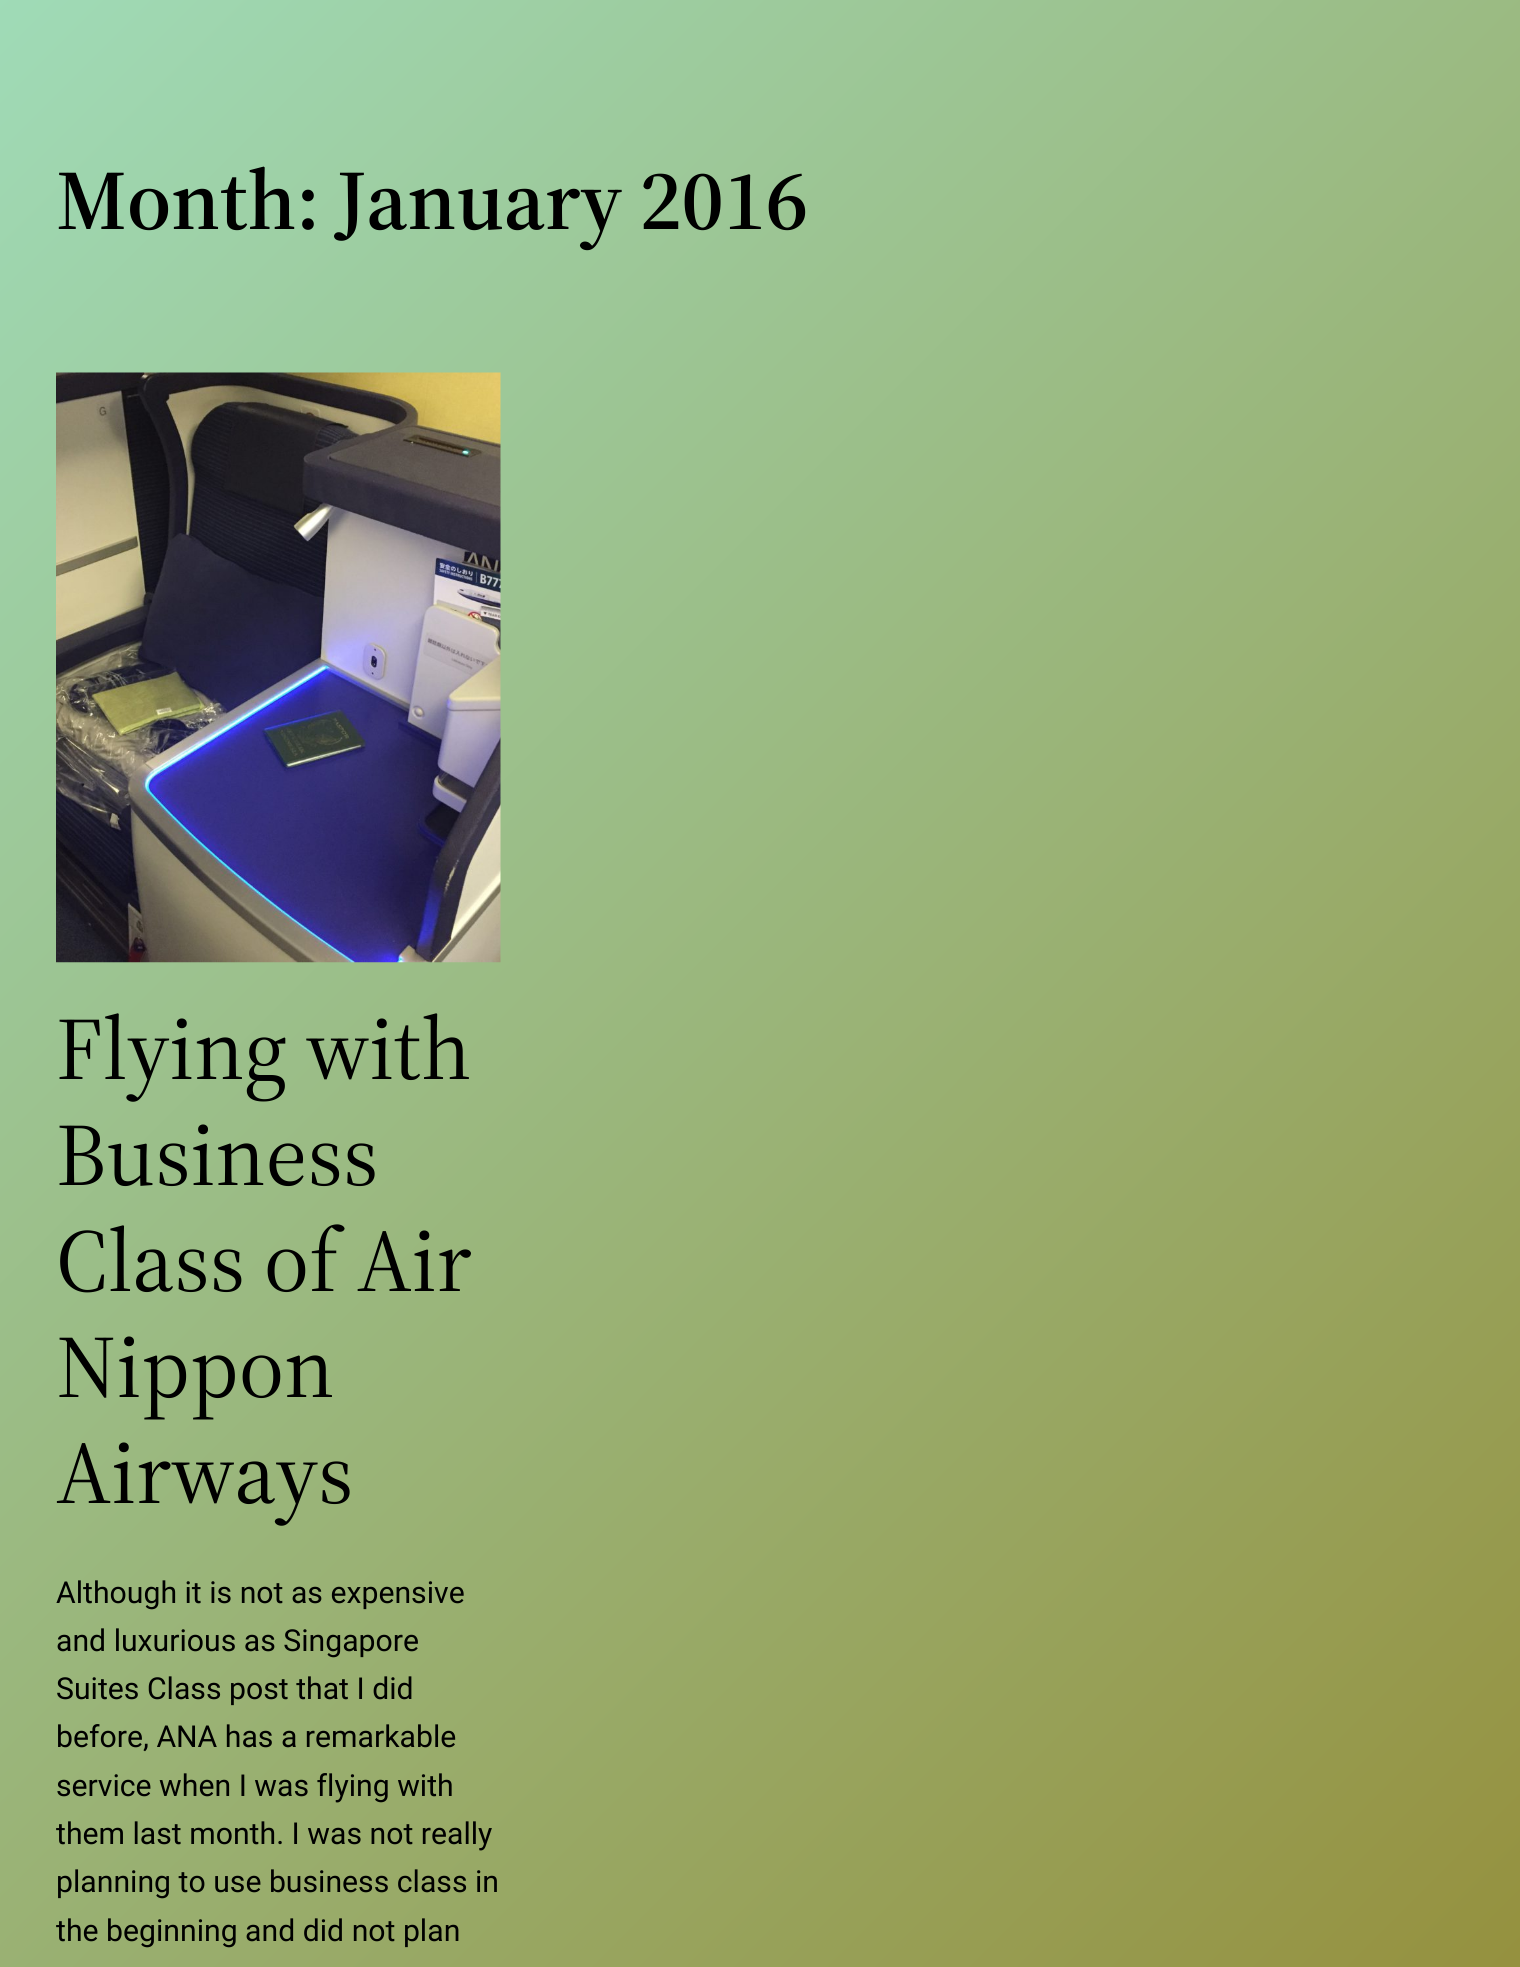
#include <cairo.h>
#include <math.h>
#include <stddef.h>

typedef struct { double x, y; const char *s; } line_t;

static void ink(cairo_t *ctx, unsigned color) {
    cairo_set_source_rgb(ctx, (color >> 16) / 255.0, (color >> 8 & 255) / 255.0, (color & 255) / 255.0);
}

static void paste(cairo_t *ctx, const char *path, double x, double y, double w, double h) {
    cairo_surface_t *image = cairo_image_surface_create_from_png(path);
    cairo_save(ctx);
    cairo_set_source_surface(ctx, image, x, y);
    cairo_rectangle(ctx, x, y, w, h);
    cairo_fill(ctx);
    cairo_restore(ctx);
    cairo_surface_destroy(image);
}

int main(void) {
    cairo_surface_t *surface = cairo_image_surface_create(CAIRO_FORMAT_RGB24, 1520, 1967);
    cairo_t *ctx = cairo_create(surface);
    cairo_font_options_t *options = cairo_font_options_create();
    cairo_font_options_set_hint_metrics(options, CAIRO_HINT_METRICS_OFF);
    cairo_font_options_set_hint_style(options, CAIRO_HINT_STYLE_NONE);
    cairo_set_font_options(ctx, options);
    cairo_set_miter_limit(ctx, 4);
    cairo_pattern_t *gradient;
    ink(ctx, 0xFFFFFF);
    cairo_paint(ctx);
    gradient = cairo_pattern_create_linear(-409, -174, 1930, 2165);
    cairo_pattern_add_color_stop_rgba(gradient, 0, 0.631, 0.906, 0.796, 1);
    cairo_pattern_add_color_stop_rgba(gradient, 0.96, 0.58, 0.533, 0.188, 1);
    cairo_set_source(ctx, gradient);
    cairo_pattern_destroy(gradient);
    cairo_rectangle(ctx, 0, 0, 1520, 1967);
    cairo_fill(ctx);
    cairo_select_font_face(ctx, "Source Serif 4 SemiBold", CAIRO_FONT_SLANT_NORMAL, CAIRO_FONT_WEIGHT_NORMAL);
    cairo_set_font_size(ctx, 84.75);
    ink(ctx, 0x000000);
    cairo_move_to(ctx, 56, 229);
    cairo_show_text(ctx, "Month: January 2016");
    paste(ctx, "media/1.png", 56, 372, 445, 591);
    cairo_select_font_face(ctx, "Source Serif 4", CAIRO_FONT_SLANT_NORMAL, CAIRO_FONT_WEIGHT_NORMAL);
    cairo_set_font_size(ctx, 88.5);
    {
        static const line_t items[] = {
            {56, 1079, "Flying with"},
            {56, 1185, "Business"},
            {56, 1291, "Class of Air"},
            {56, 1397, "Nippon"},
            {56, 1503, "Airways"},
        };
        for (size_t i = 0; i < sizeof items / sizeof *items; i++) {
            cairo_move_to(ctx, items[i].x, items[i].y);
            cairo_show_text(ctx, items[i].s);
        }
    }
    cairo_select_font_face(ctx, "Roboto", CAIRO_FONT_SLANT_NORMAL, CAIRO_FONT_WEIGHT_NORMAL);
    cairo_set_font_size(ctx, 30.2);
    {
        static const line_t items[] = {
            {56, 1603, "Although it is not as expensive"},
            {56, 1651, "and luxurious as Singapore"},
            {56, 1699, "Suites Class post that I did"},
            {56, 1747, "before, ANA has a remarkable"},
            {56, 1796, "service when I was flying with"},
            {56, 1844, "them last month. I was not really"},
            {56, 1892, "planning to use business class in"},
            {56, 1941, "the beginning and did not plan"},
        };
        for (size_t i = 0; i < sizeof items / sizeof *items; i++) {
            cairo_move_to(ctx, items[i].x, items[i].y);
            cairo_show_text(ctx, items[i].s);
        }
    }
    cairo_surface_write_to_png(surface, "image.png");
    cairo_font_options_destroy(options);
    cairo_destroy(ctx);
    cairo_surface_destroy(surface);
    return 0;
}
